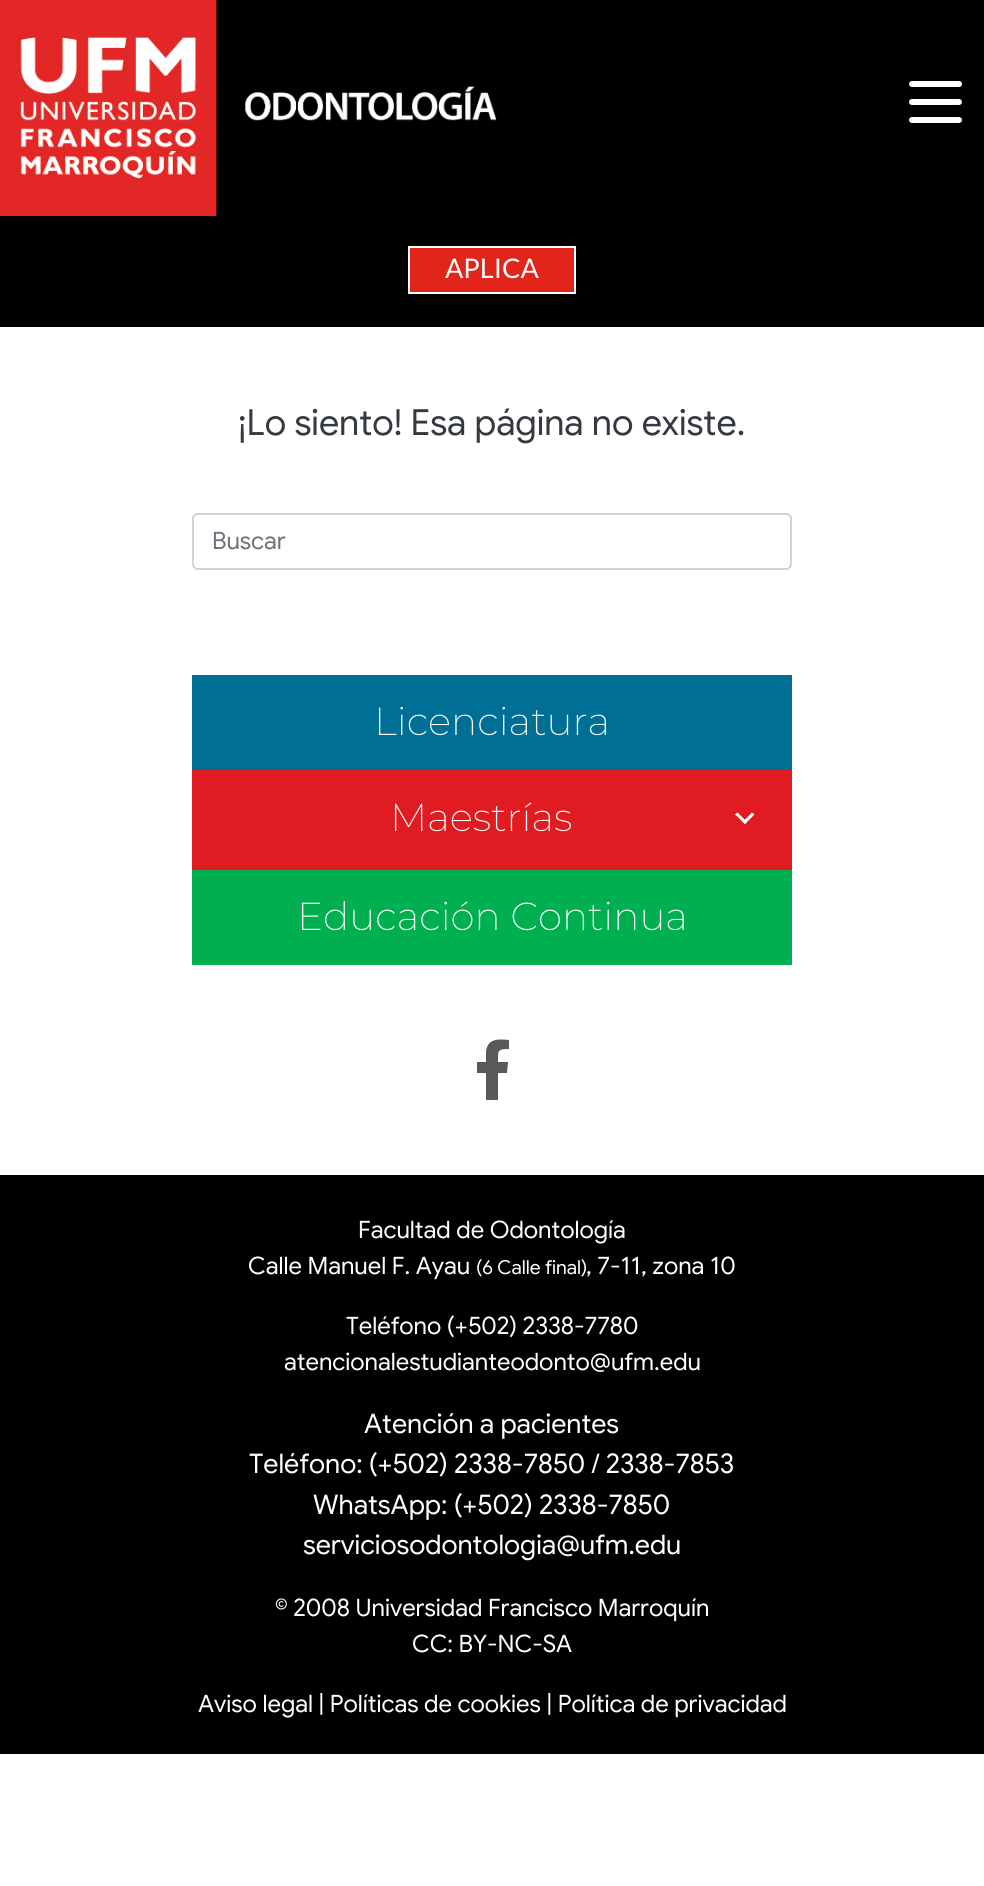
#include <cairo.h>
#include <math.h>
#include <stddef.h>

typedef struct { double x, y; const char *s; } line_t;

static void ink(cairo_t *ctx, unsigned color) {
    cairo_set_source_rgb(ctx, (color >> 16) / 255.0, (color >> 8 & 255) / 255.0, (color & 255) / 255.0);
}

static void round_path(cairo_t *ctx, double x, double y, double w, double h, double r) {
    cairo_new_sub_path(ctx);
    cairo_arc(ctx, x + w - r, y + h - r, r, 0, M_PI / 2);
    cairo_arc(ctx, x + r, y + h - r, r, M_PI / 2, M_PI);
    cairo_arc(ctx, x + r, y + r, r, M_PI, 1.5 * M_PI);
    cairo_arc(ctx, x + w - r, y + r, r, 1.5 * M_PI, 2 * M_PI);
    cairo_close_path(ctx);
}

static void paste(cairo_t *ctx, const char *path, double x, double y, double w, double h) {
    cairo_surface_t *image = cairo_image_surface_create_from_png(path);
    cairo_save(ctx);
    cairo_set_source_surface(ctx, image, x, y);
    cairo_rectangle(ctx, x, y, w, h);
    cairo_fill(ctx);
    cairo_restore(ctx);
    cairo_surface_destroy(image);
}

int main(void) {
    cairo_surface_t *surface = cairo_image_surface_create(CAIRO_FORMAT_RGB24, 984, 1886);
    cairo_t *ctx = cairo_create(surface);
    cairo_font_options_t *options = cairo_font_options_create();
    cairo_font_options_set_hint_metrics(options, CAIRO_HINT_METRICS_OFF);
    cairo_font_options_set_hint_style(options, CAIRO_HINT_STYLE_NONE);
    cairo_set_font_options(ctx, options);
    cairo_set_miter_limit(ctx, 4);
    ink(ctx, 0xFFFFFF);
    cairo_paint(ctx);
    ink(ctx, 0x000000);
    cairo_rectangle(ctx, 0, 0, 984, 327);
    cairo_fill(ctx);
    paste(ctx, "media/1.png", 0, 0, 497, 216);
    ink(ctx, 0xFFFFFF);
    round_path(ctx, 909, 99, 53, 6, 3);
    cairo_fill(ctx);
    round_path(ctx, 909, 81, 53, 6, 3);
    cairo_fill(ctx);
    round_path(ctx, 909, 117, 53, 6, 3);
    cairo_fill(ctx);
    ink(ctx, 0xE1251B);
    cairo_rectangle(ctx, 409, 247, 166, 46);
    cairo_fill_preserve(ctx);
    ink(ctx, 0xFFFFFF);
    cairo_stroke(ctx);
    cairo_select_font_face(ctx, "Lato", CAIRO_FONT_SLANT_NORMAL, CAIRO_FONT_WEIGHT_NORMAL);
    cairo_set_font_size(ctx, 27);
    cairo_move_to(ctx, 445, 278);
    cairo_show_text(ctx, "APLICA");
    cairo_select_font_face(ctx, "Google Sans", CAIRO_FONT_SLANT_NORMAL, CAIRO_FONT_WEIGHT_NORMAL);
    cairo_set_font_size(ctx, 36);
    ink(ctx, 0x343A40);
    cairo_move_to(ctx, 238, 435);
    cairo_show_text(ctx, "¡Lo siento! Esa página no existe.");
    round_path(ctx, 193, 514, 598, 55, 5);
    ink(ctx, 0xCED4DA);
    cairo_stroke(ctx);
    cairo_set_font_size(ctx, 24);
    ink(ctx, 0x6C757D);
    cairo_move_to(ctx, 212, 549);
    cairo_show_text(ctx, "Buscar");
    ink(ctx, 0x006F95);
    cairo_rectangle(ctx, 192, 675, 600, 95);
    cairo_fill(ctx);
    cairo_select_font_face(ctx, "Montserrat Thin", CAIRO_FONT_SLANT_NORMAL, CAIRO_FONT_WEIGHT_NORMAL);
    cairo_set_font_size(ctx, 39);
    ink(ctx, 0xFFFFFF);
    cairo_move_to(ctx, 374, 735);
    cairo_show_text(ctx, "Licenciatura");
    ink(ctx, 0xE11B22);
    cairo_rectangle(ctx, 192, 770, 600, 100);
    cairo_fill(ctx);
    ink(ctx, 0xFFFFFF);
    cairo_move_to(ctx, 390, 831);
    cairo_show_text(ctx, "Maestrías");
    cairo_new_path(ctx);
    cairo_move_to(ctx, 752, 812.5);
    cairo_line_to(ctx, 754.5, 814.5);
    cairo_line_to(ctx, 745, 824);
    cairo_line_to(ctx, 742.5, 822);
    cairo_close_path(ctx);
    cairo_fill(ctx);
    cairo_new_path(ctx);
    cairo_move_to(ctx, 737.5, 812.5);
    cairo_line_to(ctx, 747, 822);
    cairo_line_to(ctx, 745, 824);
    cairo_line_to(ctx, 735, 814.5);
    cairo_close_path(ctx);
    cairo_fill(ctx);
    ink(ctx, 0x00B050);
    cairo_rectangle(ctx, 192, 870, 600, 95);
    cairo_fill(ctx);
    ink(ctx, 0xFFFFFF);
    cairo_move_to(ctx, 297, 930);
    cairo_show_text(ctx, "Educación Continua");
    ink(ctx, 0x58595B);
    cairo_new_path(ctx);
    cairo_move_to(ctx, 507, 1073);
    cairo_line_to(ctx, 498, 1073);
    cairo_line_to(ctx, 498, 1100);
    cairo_line_to(ctx, 486, 1100);
    cairo_line_to(ctx, 486, 1073);
    cairo_line_to(ctx, 477, 1073);
    cairo_line_to(ctx, 477, 1062);
    cairo_line_to(ctx, 486, 1062);
    cairo_line_to(ctx, 486, 1051);
    cairo_curve_to(ctx, 488, 1038, 499, 1039, 509, 1040);
    cairo_line_to(ctx, 509, 1049);
    cairo_curve_to(ctx, 497, 1049, 498, 1051, 498, 1062);
    cairo_line_to(ctx, 508, 1062);
    cairo_close_path(ctx);
    cairo_fill(ctx);
    ink(ctx, 0x000000);
    cairo_rectangle(ctx, 0, 1175, 984, 579);
    cairo_fill(ctx);
    cairo_select_font_face(ctx, "Google Sans", CAIRO_FONT_SLANT_NORMAL, CAIRO_FONT_WEIGHT_NORMAL);
    cairo_set_font_size(ctx, 24);
    ink(ctx, 0xFFFFFF);
    cairo_move_to(ctx, 358, 1238);
    cairo_show_text(ctx, "Facultad de Odontología");
    cairo_move_to(ctx, 248, 1274);
    cairo_show_text(ctx, "Calle Manuel F. Ayau");
    cairo_set_font_size(ctx, 19.25);
    cairo_move_to(ctx, 476, 1274);
    cairo_show_text(ctx, "(6 Calle final)");
    cairo_set_font_size(ctx, 24);
    {
        static const line_t items[] = {
            {586, 1274, ", 7-11, zona 10"},
            {346, 1334, "Teléfono (+502) 2338-7780"},
            {284, 1370, "atencionalestudianteodonto@ufm.edu"},
        };
        for (size_t i = 0; i < sizeof items / sizeof *items; i++) {
            cairo_move_to(ctx, items[i].x, items[i].y);
            cairo_show_text(ctx, items[i].s);
        }
    }
    cairo_set_font_size(ctx, 27);
    {
        static const line_t items[] = {
            {364, 1433, "Atención a pacientes"},
            {249, 1473, "Teléfono: (+502) 2338-7850 / 2338-7853"},
            {313, 1514, "WhatsApp: (+502) 2338-7850"},
            {303, 1554, "serviciosodontologia@ufm.edu"},
        };
        for (size_t i = 0; i < sizeof items / sizeof *items; i++) {
            cairo_move_to(ctx, items[i].x, items[i].y);
            cairo_show_text(ctx, items[i].s);
        }
    }
    cairo_set_font_size(ctx, 24);
    {
        static const line_t items[] = {
            {275, 1616, "© 2008 Universidad Francisco Marroquín"},
            {412, 1652, "CC: BY-NC-SA"},
            {198, 1712, "Aviso legal | Políticas de cookies | Política de privacidad"},
        };
        for (size_t i = 0; i < sizeof items / sizeof *items; i++) {
            cairo_move_to(ctx, items[i].x, items[i].y);
            cairo_show_text(ctx, items[i].s);
        }
    }
    cairo_surface_write_to_png(surface, "image.png");
    cairo_font_options_destroy(options);
    cairo_destroy(ctx);
    cairo_surface_destroy(surface);
    return 0;
}
